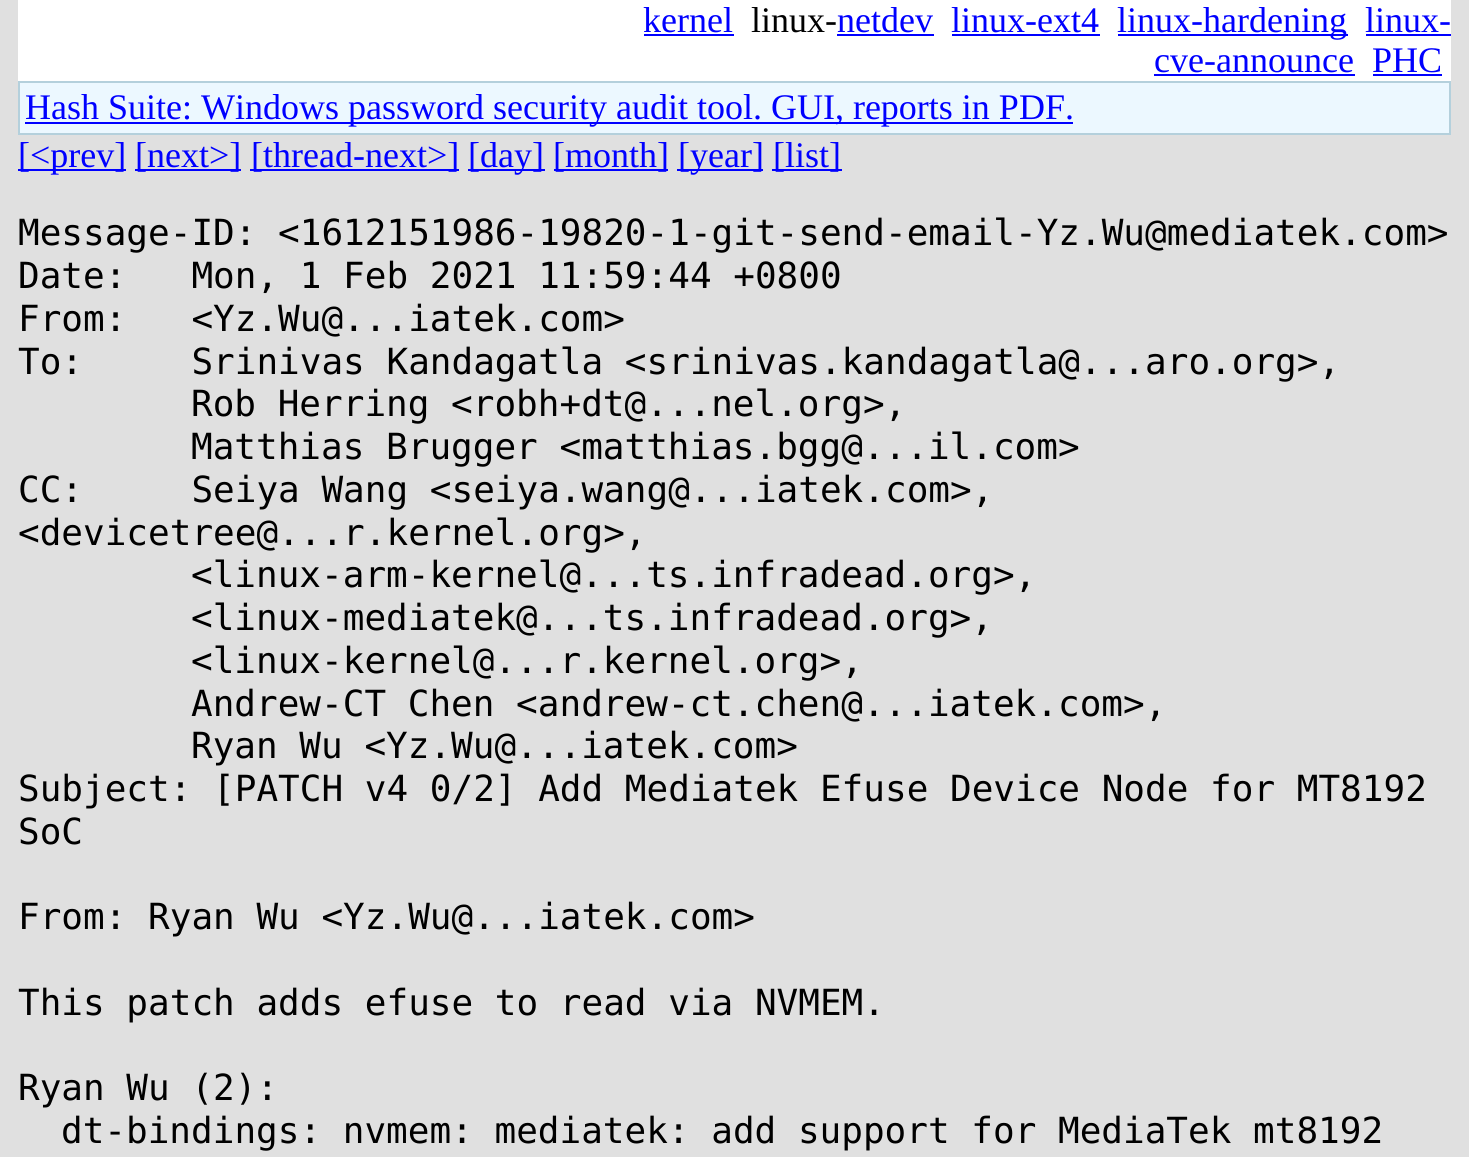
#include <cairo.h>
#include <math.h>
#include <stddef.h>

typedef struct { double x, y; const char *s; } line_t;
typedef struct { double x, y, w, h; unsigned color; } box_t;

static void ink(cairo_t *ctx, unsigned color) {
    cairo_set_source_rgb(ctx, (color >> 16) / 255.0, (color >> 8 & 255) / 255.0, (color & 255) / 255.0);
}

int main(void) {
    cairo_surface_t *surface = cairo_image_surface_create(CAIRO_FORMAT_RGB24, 1469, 1157);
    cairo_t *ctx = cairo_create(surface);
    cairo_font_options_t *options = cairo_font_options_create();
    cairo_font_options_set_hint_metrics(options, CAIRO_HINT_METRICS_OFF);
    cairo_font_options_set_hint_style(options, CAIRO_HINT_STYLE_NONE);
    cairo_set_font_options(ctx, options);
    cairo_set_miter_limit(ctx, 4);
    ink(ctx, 0xE0E0E0);
    cairo_paint(ctx);
    ink(ctx, 0xFFFFFF);
    cairo_rectangle(ctx, 18, 0, 1433, 81);
    cairo_fill(ctx);
    cairo_select_font_face(ctx, "Liberation Serif", CAIRO_FONT_SLANT_NORMAL, CAIRO_FONT_WEIGHT_NORMAL);
    cairo_set_font_size(ctx, 36);
    ink(ctx, 0x0000FF);
    cairo_move_to(ctx, 643, 32);
    cairo_show_text(ctx, "kernel");
    cairo_rectangle(ctx, 644, 34, 90, 2);
    cairo_fill(ctx);
    ink(ctx, 0x000000);
    cairo_move_to(ctx, 751, 32);
    cairo_show_text(ctx, "linux-");
    ink(ctx, 0x0000FF);
    cairo_move_to(ctx, 837, 32);
    cairo_show_text(ctx, "netdev");
    cairo_rectangle(ctx, 837, 34, 97, 2);
    cairo_fill(ctx);
    cairo_move_to(ctx, 951, 32);
    cairo_show_text(ctx, "linux-ext4");
    cairo_rectangle(ctx, 952, 34, 148, 2);
    cairo_fill(ctx);
    cairo_rectangle(ctx, 1118, 34, 230, 2);
    cairo_fill(ctx);
    cairo_move_to(ctx, 1117, 32);
    cairo_show_text(ctx, "linux-hardening");
    cairo_move_to(ctx, 1365, 32);
    cairo_show_text(ctx, "linux-");
    cairo_rectangle(ctx, 1366, 34, 85, 2);
    cairo_fill(ctx);
    cairo_move_to(ctx, 1154, 72);
    cairo_show_text(ctx, "cve-announce");
    cairo_rectangle(ctx, 1154, 74, 201, 2);
    cairo_fill(ctx);
    cairo_move_to(ctx, 1372, 72);
    cairo_show_text(ctx, "PHC");
    {
        static const box_t items[] = {
            {1373, 74, 69, 2, 0x0000FF},
            {18, 81, 1433, 54, 0xB4D0DC},
            {20, 83, 1429, 50, 0xECF8FF},
            {25, 122, 1048, 2, 0x0000FF},
        };
        for (size_t i = 0; i < sizeof items / sizeof *items; i++) {
            ink(ctx, items[i].color);
            cairo_rectangle(ctx, items[i].x, items[i].y, items[i].w, items[i].h);
            cairo_fill(ctx);
        }
    }
    cairo_move_to(ctx, 25, 119);
    cairo_show_text(ctx, "Hash Suite: Windows password security audit tool. GUI, reports in PDF.");
    cairo_rectangle(ctx, 18, 169, 108, 2);
    cairo_fill(ctx);
    cairo_move_to(ctx, 18, 167);
    cairo_show_text(ctx, "[<prev]");
    cairo_rectangle(ctx, 135, 169, 106, 2);
    cairo_fill(ctx);
    cairo_move_to(ctx, 135, 167);
    cairo_show_text(ctx, "[next>]");
    cairo_rectangle(ctx, 250, 169, 209, 2);
    cairo_fill(ctx);
    cairo_move_to(ctx, 251, 167);
    cairo_show_text(ctx, "[thread-next>]");
    cairo_rectangle(ctx, 468, 169, 77, 2);
    cairo_fill(ctx);
    cairo_move_to(ctx, 468, 167);
    cairo_show_text(ctx, "[day]");
    cairo_rectangle(ctx, 554, 169, 114, 2);
    cairo_fill(ctx);
    cairo_move_to(ctx, 553, 167);
    cairo_show_text(ctx, "[month]");
    cairo_rectangle(ctx, 677, 169, 86, 2);
    cairo_fill(ctx);
    cairo_move_to(ctx, 678, 167);
    cairo_show_text(ctx, "[year]");
    cairo_rectangle(ctx, 772, 169, 70, 2);
    cairo_fill(ctx);
    cairo_move_to(ctx, 773, 167);
    cairo_show_text(ctx, "[list]");
    cairo_select_font_face(ctx, "DejaVu Sans Mono", CAIRO_FONT_SLANT_NORMAL, CAIRO_FONT_WEIGHT_NORMAL);
    ink(ctx, 0x000000);
    {
        static const line_t items[] = {
            {18, 245, "Message-ID: <1612151986-19820-1-git-send-email-Yz.Wu@mediatek.com>"},
            {18, 288, "Date:   Mon, 1 Feb 2021 11:59:44 +0800"},
            {18, 331, "From:   <Yz.Wu@...iatek.com>"},
            {18, 374, "To:     Srinivas Kandagatla <srinivas.kandagatla@...aro.org>,"},
            {191, 416, "Rob Herring <robh+dt@...nel.org>,"},
            {191, 459, "Matthias Brugger <matthias.bgg@...il.com>"},
            {18, 502, "CC:     Seiya Wang <seiya.wang@...iatek.com>,"},
            {18, 545, "<devicetree@...r.kernel.org>,"},
            {191, 587, "<linux-arm-kernel@...ts.infradead.org>,"},
            {191, 630, "<linux-mediatek@...ts.infradead.org>,"},
            {191, 673, "<linux-kernel@...r.kernel.org>,"},
            {191, 716, "Andrew-CT Chen <andrew-ct.chen@...iatek.com>,"},
            {191, 758, "Ryan Wu <Yz.Wu@...iatek.com>"},
            {18, 801, "Subject: [PATCH v4 0/2] Add Mediatek Efuse Device Node for MT8192"},
            {18, 844, "SoC"},
            {18, 929, "From: Ryan Wu <Yz.Wu@...iatek.com>"},
            {18, 1015, "This patch adds efuse to read via NVMEM."},
            {18, 1100, "Ryan Wu (2):"},
            {61, 1143, "dt-bindings: nvmem: mediatek: add support for MediaTek mt8192"},
        };
        for (size_t i = 0; i < sizeof items / sizeof *items; i++) {
            cairo_move_to(ctx, items[i].x, items[i].y);
            cairo_show_text(ctx, items[i].s);
        }
    }
    cairo_surface_write_to_png(surface, "image.png");
    cairo_font_options_destroy(options);
    cairo_destroy(ctx);
    cairo_surface_destroy(surface);
    return 0;
}
